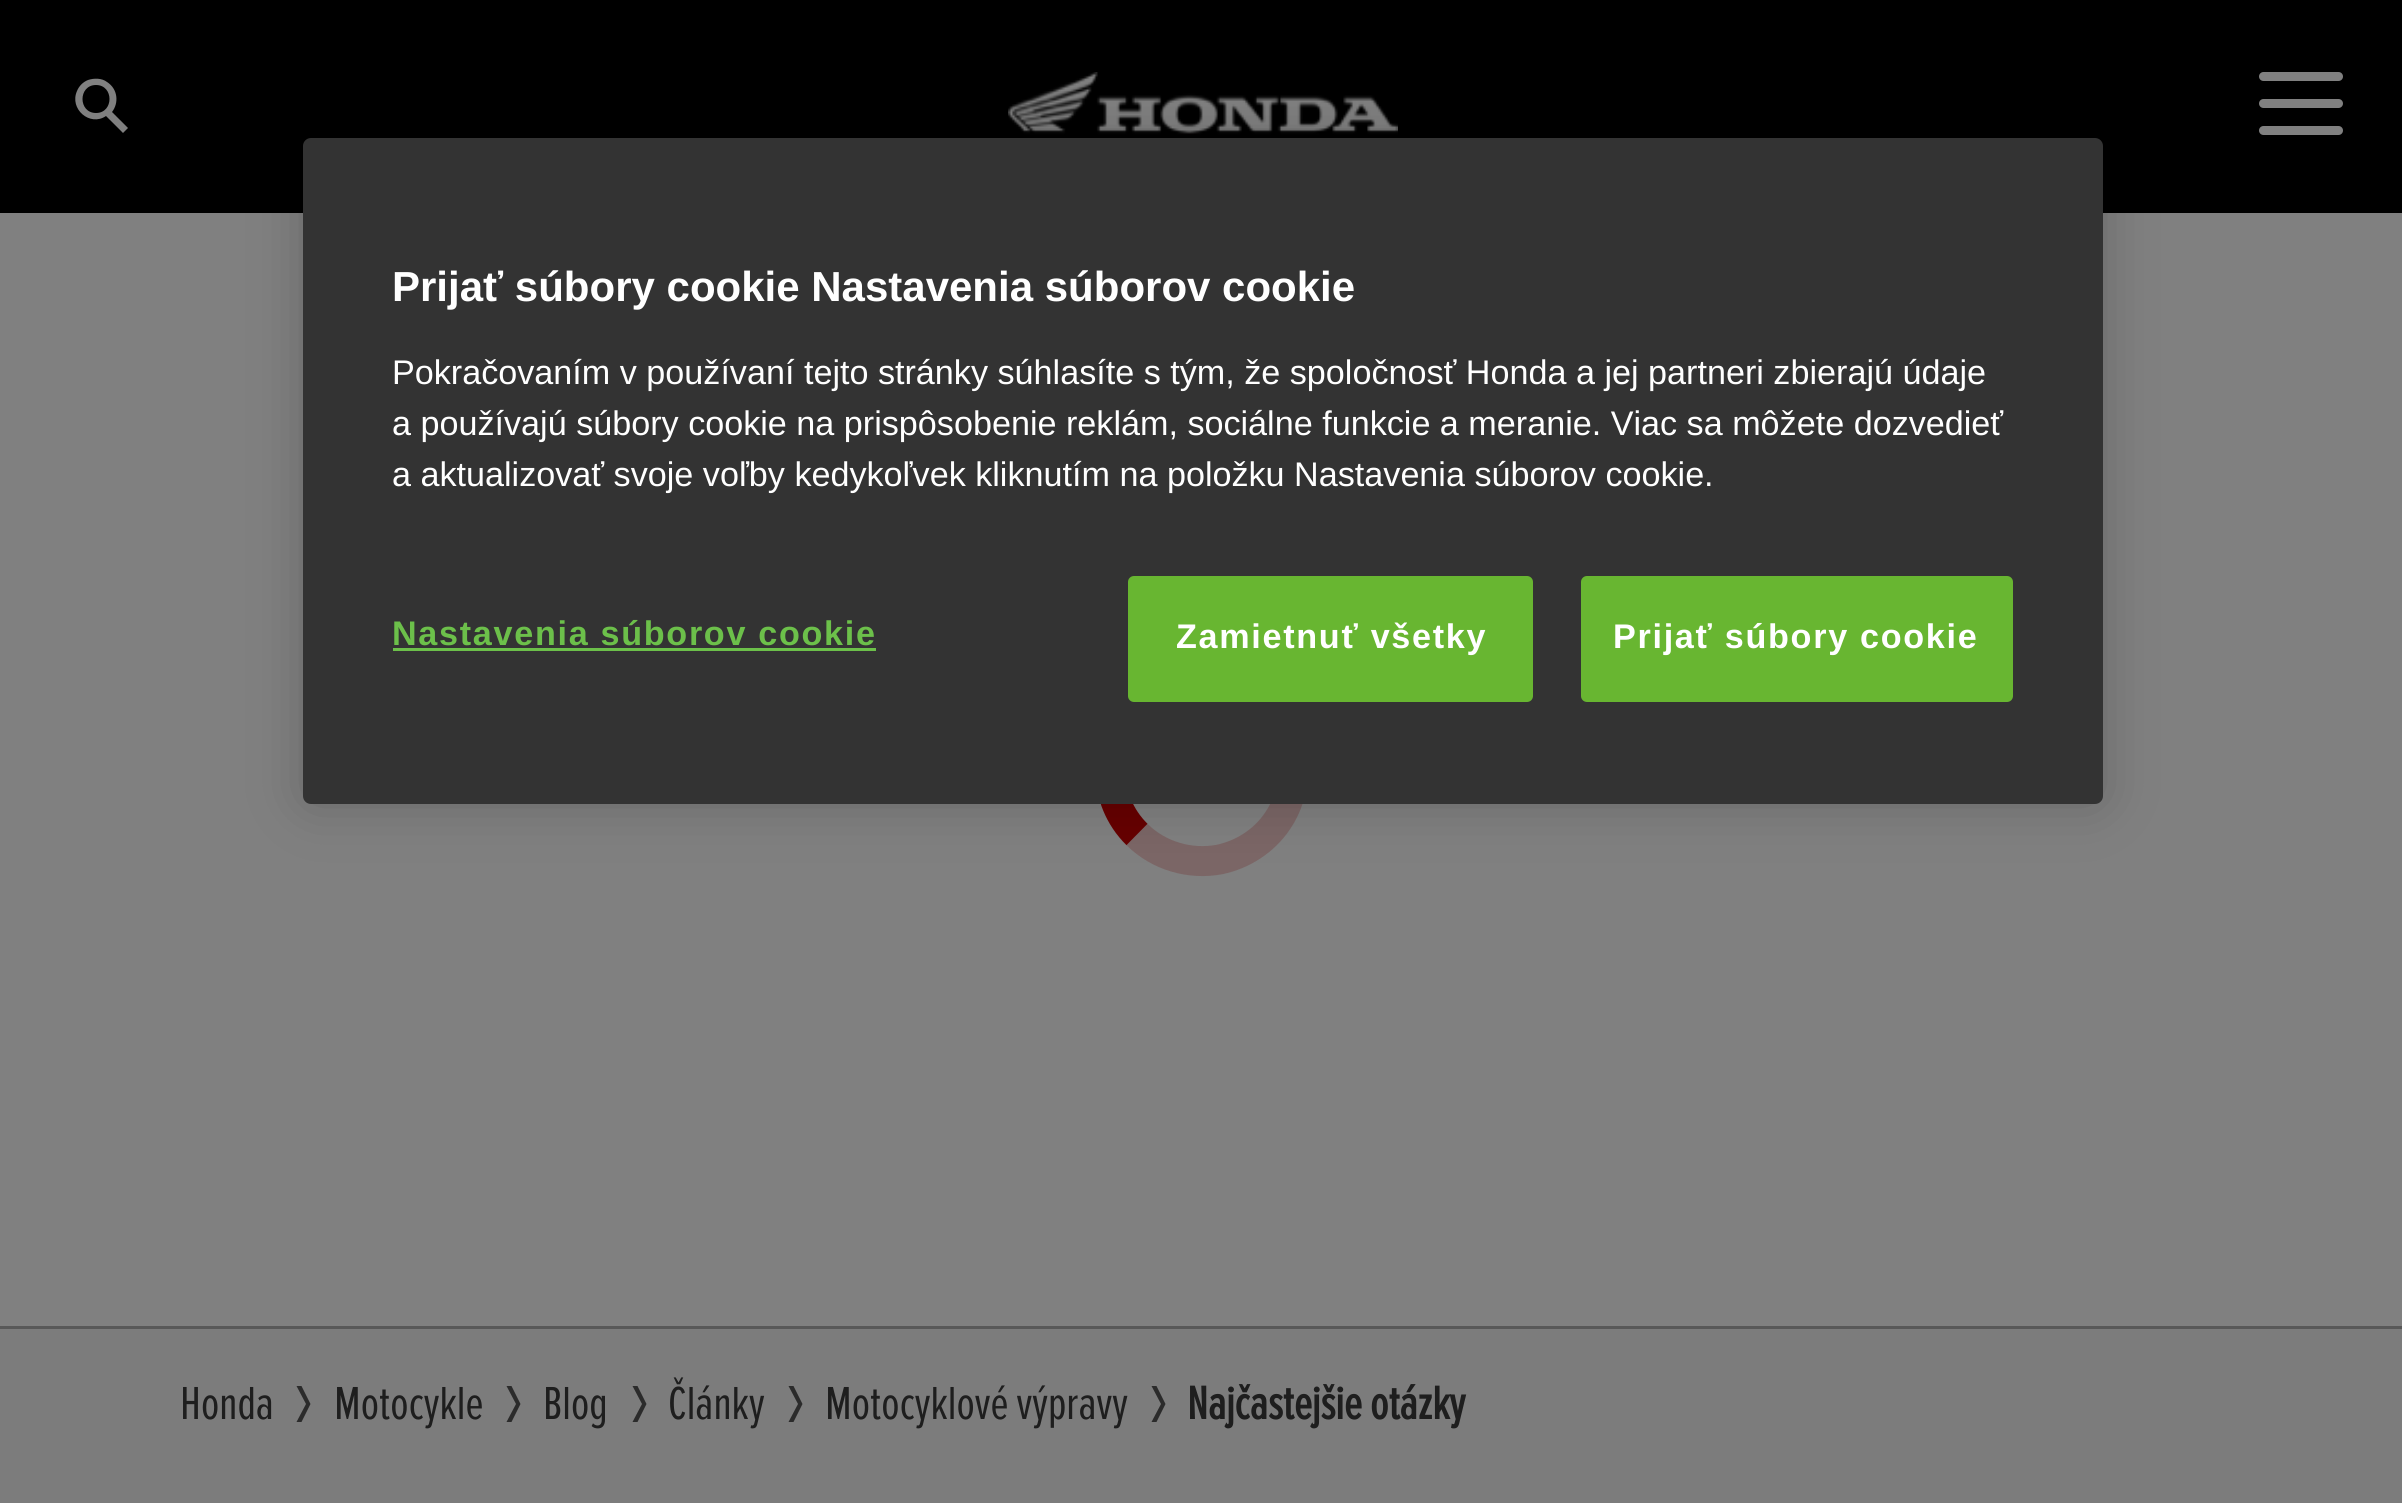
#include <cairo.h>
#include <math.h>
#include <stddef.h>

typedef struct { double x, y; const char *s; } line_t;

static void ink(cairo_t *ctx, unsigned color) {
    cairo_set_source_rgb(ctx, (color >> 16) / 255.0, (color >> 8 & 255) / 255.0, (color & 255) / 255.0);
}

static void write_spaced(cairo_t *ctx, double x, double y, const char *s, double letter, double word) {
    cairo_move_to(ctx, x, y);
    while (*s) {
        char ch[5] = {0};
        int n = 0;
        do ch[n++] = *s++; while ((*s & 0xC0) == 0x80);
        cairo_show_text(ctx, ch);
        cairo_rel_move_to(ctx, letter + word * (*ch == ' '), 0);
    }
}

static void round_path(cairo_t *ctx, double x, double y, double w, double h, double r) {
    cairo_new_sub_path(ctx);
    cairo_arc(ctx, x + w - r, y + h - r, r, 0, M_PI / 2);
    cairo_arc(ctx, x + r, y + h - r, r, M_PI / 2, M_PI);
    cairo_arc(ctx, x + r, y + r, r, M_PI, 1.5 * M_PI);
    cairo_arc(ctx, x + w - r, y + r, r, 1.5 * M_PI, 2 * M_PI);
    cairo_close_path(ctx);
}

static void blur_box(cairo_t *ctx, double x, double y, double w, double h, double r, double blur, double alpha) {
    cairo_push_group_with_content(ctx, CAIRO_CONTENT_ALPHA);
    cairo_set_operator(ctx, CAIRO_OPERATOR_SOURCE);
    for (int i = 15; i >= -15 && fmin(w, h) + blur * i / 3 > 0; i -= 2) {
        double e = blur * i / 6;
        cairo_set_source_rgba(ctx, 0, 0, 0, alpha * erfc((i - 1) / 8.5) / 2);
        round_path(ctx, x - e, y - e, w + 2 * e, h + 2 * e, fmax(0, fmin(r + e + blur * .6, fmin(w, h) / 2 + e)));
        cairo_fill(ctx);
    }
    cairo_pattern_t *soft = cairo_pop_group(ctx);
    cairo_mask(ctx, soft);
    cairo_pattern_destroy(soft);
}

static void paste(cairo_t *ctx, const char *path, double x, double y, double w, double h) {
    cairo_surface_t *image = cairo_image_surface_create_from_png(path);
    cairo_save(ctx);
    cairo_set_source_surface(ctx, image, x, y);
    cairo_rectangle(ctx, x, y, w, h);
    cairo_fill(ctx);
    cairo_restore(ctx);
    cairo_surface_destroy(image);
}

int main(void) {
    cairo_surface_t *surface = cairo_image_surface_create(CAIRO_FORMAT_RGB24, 2402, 1503);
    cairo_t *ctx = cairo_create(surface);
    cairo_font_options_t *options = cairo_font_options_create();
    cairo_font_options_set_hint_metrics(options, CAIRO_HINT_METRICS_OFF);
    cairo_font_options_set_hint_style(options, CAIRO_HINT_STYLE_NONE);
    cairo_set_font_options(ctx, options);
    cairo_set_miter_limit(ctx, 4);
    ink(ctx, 0x808080);
    cairo_paint(ctx);
    ink(ctx, 0x000000);
    cairo_rectangle(ctx, 0, 0, 2402, 213);
    cairo_fill(ctx);
    paste(ctx, "media/1.png", 1008, 72, 390, 63);
    cairo_new_path(ctx);
    cairo_move_to(ctx, 1137, 707.5);
    cairo_curve_to(ctx, 1193.5, 651.5, 1293, 690.5, 1293, 771);
    cairo_curve_to(ctx, 1293, 788.5, 1287.5, 806.5, 1277.5, 821);
    cairo_curve_to(ctx, 1264, 841, 1243, 854.5, 1219.5, 859.5);
    cairo_curve_to(ctx, 1190, 865, 1158.5, 856, 1137, 834.5);
    ink(ctx, 0x7B6666);
    cairo_set_line_width(ctx, 30);
    cairo_stroke(ctx);
    cairo_new_path(ctx);
    cairo_move_to(ctx, 1137, 834.5);
    cairo_curve_to(ctx, 1101.5, 799.5, 1101.5, 742.5, 1137, 707.5);
    ink(ctx, 0x660000);
    cairo_stroke(ctx);
    ink(ctx, 0x000000);
    blur_box(ctx, 303, 138, 1800, 666, 8, 27, 0.2);
    ink(ctx, 0x333333);
    round_path(ctx, 303, 138, 1800, 666, 8);
    cairo_fill(ctx);
    cairo_select_font_face(ctx, "Liberation Sans", CAIRO_FONT_SLANT_NORMAL, CAIRO_FONT_WEIGHT_BOLD);
    cairo_set_font_size(ctx, 42);
    ink(ctx, 0xFFFFFF);
    cairo_move_to(ctx, 392, 301);
    cairo_show_text(ctx, "Prijať súbory cookie Nastavenia súborov cookie");
    cairo_select_font_face(ctx, "Liberation Sans", CAIRO_FONT_SLANT_NORMAL, CAIRO_FONT_WEIGHT_NORMAL);
    cairo_set_font_size(ctx, 34.15);
    {
        static const line_t items[] = {
            {392, 384, "Pokračovaním v používaní tejto stránky súhlasíte s tým, že spoločnosť Honda a jej partneri zbierajú údaje"},
            {392, 435, "a používajú súbory cookie na prispôsobenie reklám, sociálne funkcie a meranie. Viac sa môžete dozvedieť"},
            {392, 486, "a aktualizovať svoje voľby kedykoľvek kliknutím na položku Nastavenia súborov cookie."},
        };
        for (size_t i = 0; i < sizeof items / sizeof *items; i++) {
            cairo_move_to(ctx, items[i].x, items[i].y);
            cairo_show_text(ctx, items[i].s);
        }
    }
    cairo_select_font_face(ctx, "Liberation Sans", CAIRO_FONT_SLANT_NORMAL, CAIRO_FONT_WEIGHT_BOLD);
    ink(ctx, 0x6CC04A);
    write_spaced(ctx, 392, 645, "Nastavenia súborov cookie", 1.7, 0);
    cairo_rectangle(ctx, 393, 648, 483, 3);
    cairo_fill(ctx);
    ink(ctx, 0x68B631);
    round_path(ctx, 1129.5, 577.5, 402, 123, 4.5);
    cairo_fill_preserve(ctx);
    cairo_set_line_width(ctx, 3);
    cairo_stroke(ctx);
    ink(ctx, 0xFFFFFF);
    write_spaced(ctx, 1176, 648, "Zamietnuť všetky", 1.7, 0);
    ink(ctx, 0x68B631);
    round_path(ctx, 1582.5, 577.5, 429, 123, 4.5);
    cairo_fill_preserve(ctx);
    cairo_stroke(ctx);
    ink(ctx, 0xFFFFFF);
    write_spaced(ctx, 1613, 648, "Prijať súbory cookie", 1.7, 0);
    ink(ctx, 0x808080);
    cairo_new_path(ctx);
    cairo_move_to(ctx, 128, 128);
    cairo_line_to(ctx, 112, 112);
    cairo_curve_to(ctx, 119, 103, 118, 89, 107, 82);
    cairo_curve_to(ctx, 102, 78, 94, 78, 88, 80);
    cairo_curve_to(ctx, 83, 82, 79, 86, 77, 91);
    cairo_curve_to(ctx, 69, 109, 90, 127, 106, 116);
    cairo_line_to(ctx, 123, 133);
    cairo_close_path(ctx);
    cairo_move_to(ctx, 96, 113);
    cairo_curve_to(ctx, 78, 113, 78, 85, 96, 85);
    cairo_curve_to(ctx, 114, 85, 114, 113, 96, 113);
    cairo_close_path(ctx);
    cairo_fill(ctx);
    cairo_new_path(ctx);
    cairo_move_to(ctx, 2263.5, 72);
    cairo_line_to(ctx, 2301, 72);
    cairo_line_to(ctx, 2301, 81);
    cairo_line_to(ctx, 2263.5, 81);
    cairo_curve_to(ctx, 2261, 81, 2259, 79, 2259, 76.5);
    cairo_curve_to(ctx, 2259, 74, 2261, 72, 2263.5, 72);
    cairo_close_path(ctx);
    cairo_fill(ctx);
    cairo_new_path(ctx);
    cairo_move_to(ctx, 2301, 72);
    cairo_line_to(ctx, 2338.5, 72);
    cairo_curve_to(ctx, 2341, 72, 2343, 74, 2343, 76.5);
    cairo_curve_to(ctx, 2343, 79, 2341, 81, 2338.5, 81);
    cairo_line_to(ctx, 2301, 81);
    cairo_close_path(ctx);
    cairo_fill(ctx);
    cairo_new_path(ctx);
    cairo_move_to(ctx, 2263.5, 99);
    cairo_line_to(ctx, 2301, 99);
    cairo_line_to(ctx, 2301, 108);
    cairo_line_to(ctx, 2263.5, 108);
    cairo_curve_to(ctx, 2261, 108, 2259, 106, 2259, 103.5);
    cairo_curve_to(ctx, 2259, 101, 2261, 99, 2263.5, 99);
    cairo_close_path(ctx);
    cairo_fill(ctx);
    cairo_new_path(ctx);
    cairo_move_to(ctx, 2301, 99);
    cairo_line_to(ctx, 2338.5, 99);
    cairo_curve_to(ctx, 2341, 99, 2343, 101, 2343, 103.5);
    cairo_curve_to(ctx, 2343, 106, 2341, 108, 2338.5, 108);
    cairo_line_to(ctx, 2301, 108);
    cairo_close_path(ctx);
    cairo_fill(ctx);
    cairo_new_path(ctx);
    cairo_move_to(ctx, 2263.5, 126);
    cairo_line_to(ctx, 2301, 126);
    cairo_line_to(ctx, 2301, 135);
    cairo_line_to(ctx, 2263.5, 135);
    cairo_curve_to(ctx, 2261, 135, 2259, 133, 2259, 130.5);
    cairo_curve_to(ctx, 2259, 128, 2261, 126, 2263.5, 126);
    cairo_close_path(ctx);
    cairo_fill(ctx);
    cairo_new_path(ctx);
    cairo_move_to(ctx, 2301, 126);
    cairo_line_to(ctx, 2338.5, 126);
    cairo_curve_to(ctx, 2341, 126, 2343, 128, 2343, 130.5);
    cairo_curve_to(ctx, 2343, 133, 2341, 135, 2338.5, 135);
    cairo_line_to(ctx, 2301, 135);
    cairo_close_path(ctx);
    cairo_fill(ctx);
    ink(ctx, 0x7C7C7C);
    cairo_rectangle(ctx, 0, 1329, 2402, 174);
    cairo_fill(ctx);
    ink(ctx, 0x585858);
    cairo_rectangle(ctx, 0, 1326, 2402, 3);
    cairo_fill(ctx);
    cairo_select_font_face(ctx, "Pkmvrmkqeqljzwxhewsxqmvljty", CAIRO_FONT_SLANT_NORMAL, CAIRO_FONT_WEIGHT_NORMAL);
    cairo_set_font_size(ctx, 48);
    ink(ctx, 0x1E1E1E);
    cairo_move_to(ctx, 180, 1419);
    cairo_show_text(ctx, "Honda");
    ink(ctx, 0x2B2B2B);
    cairo_new_path(ctx);
    cairo_move_to(ctx, 301.5, 1386);
    cairo_line_to(ctx, 310.5, 1404);
    cairo_line_to(ctx, 301.5, 1422);
    cairo_line_to(ctx, 296.5, 1422);
    cairo_line_to(ctx, 306, 1404);
    cairo_line_to(ctx, 296.5, 1386);
    cairo_close_path(ctx);
    cairo_fill(ctx);
    ink(ctx, 0x1E1E1E);
    cairo_move_to(ctx, 334, 1419);
    cairo_show_text(ctx, "Motocykle");
    ink(ctx, 0x2B2B2B);
    cairo_new_path(ctx);
    cairo_move_to(ctx, 511.5, 1386);
    cairo_line_to(ctx, 520.5, 1404);
    cairo_line_to(ctx, 511.5, 1422);
    cairo_line_to(ctx, 506.5, 1422);
    cairo_line_to(ctx, 516, 1404);
    cairo_line_to(ctx, 506.5, 1386);
    cairo_close_path(ctx);
    cairo_fill(ctx);
    ink(ctx, 0x1E1E1E);
    cairo_move_to(ctx, 543, 1419);
    cairo_show_text(ctx, "Blog");
    ink(ctx, 0x2B2B2B);
    cairo_new_path(ctx);
    cairo_move_to(ctx, 637.5, 1386);
    cairo_line_to(ctx, 646.5, 1404);
    cairo_line_to(ctx, 637.5, 1422);
    cairo_line_to(ctx, 632.5, 1422);
    cairo_line_to(ctx, 642, 1404);
    cairo_line_to(ctx, 632.5, 1386);
    cairo_close_path(ctx);
    cairo_fill(ctx);
    ink(ctx, 0x1E1E1E);
    cairo_move_to(ctx, 668, 1419);
    cairo_show_text(ctx, "Články");
    ink(ctx, 0x2B2B2B);
    cairo_new_path(ctx);
    cairo_move_to(ctx, 793.5, 1386);
    cairo_line_to(ctx, 802.5, 1404);
    cairo_line_to(ctx, 793.5, 1422);
    cairo_line_to(ctx, 788.5, 1422);
    cairo_line_to(ctx, 798, 1404);
    cairo_line_to(ctx, 788.5, 1386);
    cairo_close_path(ctx);
    cairo_fill(ctx);
    ink(ctx, 0x1E1E1E);
    cairo_move_to(ctx, 825, 1419);
    cairo_show_text(ctx, "Motocyklové výpravy");
    ink(ctx, 0x2B2B2B);
    cairo_new_path(ctx);
    cairo_move_to(ctx, 1156.5, 1386);
    cairo_line_to(ctx, 1165.5, 1404);
    cairo_line_to(ctx, 1156.5, 1422);
    cairo_line_to(ctx, 1151.5, 1422);
    cairo_line_to(ctx, 1161, 1404);
    cairo_line_to(ctx, 1151.5, 1386);
    cairo_close_path(ctx);
    cairo_fill(ctx);
    cairo_select_font_face(ctx, "Pkmvrmkqeqljzwxhewsxqmvljty", CAIRO_FONT_SLANT_NORMAL, CAIRO_FONT_WEIGHT_BOLD);
    ink(ctx, 0x1E1E1E);
    cairo_move_to(ctx, 1187, 1419);
    cairo_show_text(ctx, "Najčastejšie otázky");
    cairo_surface_write_to_png(surface, "image.png");
    cairo_font_options_destroy(options);
    cairo_destroy(ctx);
    cairo_surface_destroy(surface);
    return 0;
}
